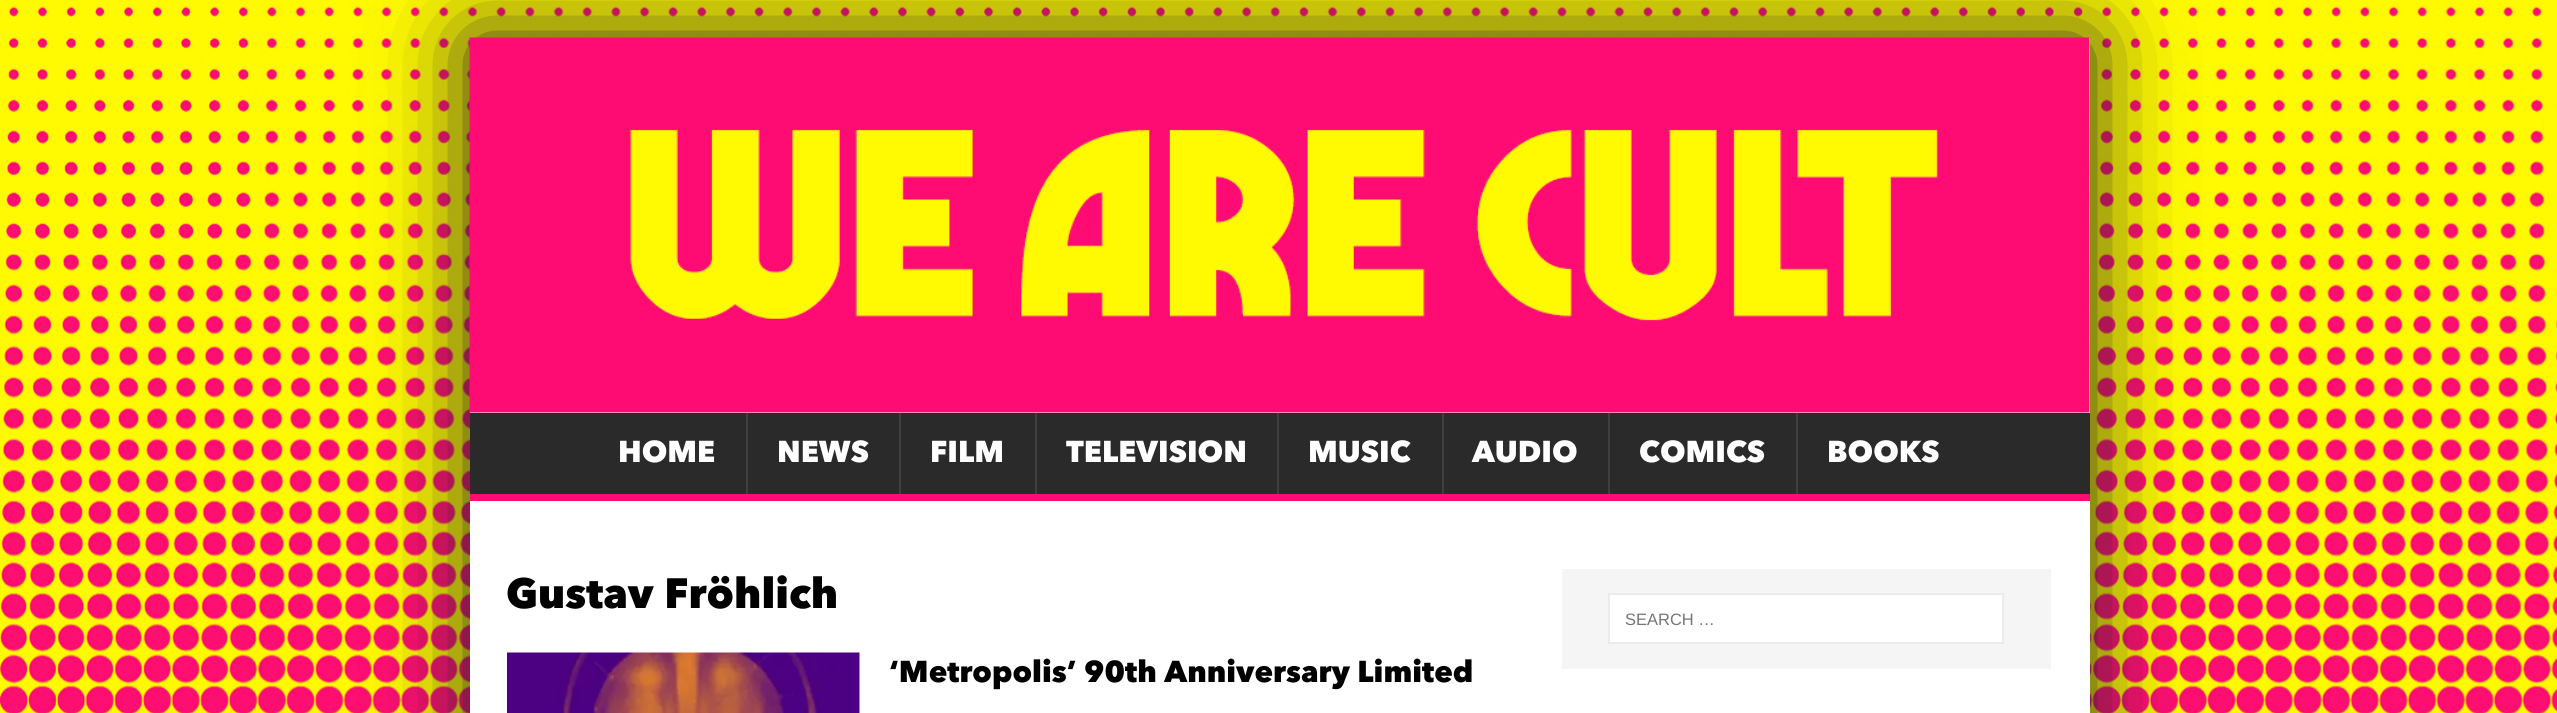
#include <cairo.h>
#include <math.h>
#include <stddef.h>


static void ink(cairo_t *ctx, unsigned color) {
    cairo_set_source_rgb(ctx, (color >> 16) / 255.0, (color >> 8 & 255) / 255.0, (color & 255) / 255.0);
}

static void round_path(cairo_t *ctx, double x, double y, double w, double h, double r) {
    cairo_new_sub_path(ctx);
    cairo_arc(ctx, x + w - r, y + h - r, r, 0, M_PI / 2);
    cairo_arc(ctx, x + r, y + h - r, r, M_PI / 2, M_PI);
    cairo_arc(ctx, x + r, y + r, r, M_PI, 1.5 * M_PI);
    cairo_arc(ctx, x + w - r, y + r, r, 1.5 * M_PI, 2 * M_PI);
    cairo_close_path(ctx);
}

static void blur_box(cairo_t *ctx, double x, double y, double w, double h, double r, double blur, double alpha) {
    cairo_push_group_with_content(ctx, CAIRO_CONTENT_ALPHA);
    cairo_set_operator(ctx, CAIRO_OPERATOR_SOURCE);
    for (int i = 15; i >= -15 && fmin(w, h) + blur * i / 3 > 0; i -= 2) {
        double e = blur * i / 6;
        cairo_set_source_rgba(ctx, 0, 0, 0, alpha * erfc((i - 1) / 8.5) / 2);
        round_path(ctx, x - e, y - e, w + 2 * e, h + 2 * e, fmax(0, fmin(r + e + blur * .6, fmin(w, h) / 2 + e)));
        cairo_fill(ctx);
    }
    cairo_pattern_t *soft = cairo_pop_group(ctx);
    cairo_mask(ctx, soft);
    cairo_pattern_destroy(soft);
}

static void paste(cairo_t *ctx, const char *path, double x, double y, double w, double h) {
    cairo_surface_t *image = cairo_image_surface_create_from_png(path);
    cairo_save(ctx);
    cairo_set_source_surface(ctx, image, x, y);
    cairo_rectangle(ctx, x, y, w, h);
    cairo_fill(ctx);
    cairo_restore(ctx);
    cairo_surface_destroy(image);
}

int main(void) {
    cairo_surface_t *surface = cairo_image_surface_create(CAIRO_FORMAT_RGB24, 2557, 713);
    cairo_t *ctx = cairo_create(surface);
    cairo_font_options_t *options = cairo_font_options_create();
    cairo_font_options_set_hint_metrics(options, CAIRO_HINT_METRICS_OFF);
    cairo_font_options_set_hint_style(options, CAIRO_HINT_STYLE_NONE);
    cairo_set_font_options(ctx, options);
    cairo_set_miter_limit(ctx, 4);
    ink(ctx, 0xFFFFFF);
    cairo_paint(ctx);
    paste(ctx, "media/1.png", 0, 0, 2557, 713);
    ink(ctx, 0x222222);
    blur_box(ctx, 470, 38, 1620, 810, 0, 45, 1);
    ink(ctx, 0xFFFFFF);
    cairo_rectangle(ctx, 470, 38, 1620, 375);
    cairo_fill(ctx);
    paste(ctx, "media/2.png", 469, 37, 1621, 376);
    ink(ctx, 0x2A2A2A);
    cairo_rectangle(ctx, 470, 413, 1620, 81);
    cairo_fill(ctx);
    ink(ctx, 0xFE0C73);
    cairo_rectangle(ctx, 470, 494, 1620, 7);
    cairo_fill(ctx);
    cairo_select_font_face(ctx, "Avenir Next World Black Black", CAIRO_FONT_SLANT_NORMAL, CAIRO_FONT_WEIGHT_NORMAL);
    cairo_set_font_size(ctx, 30);
    ink(ctx, 0xFFFFFF);
    cairo_move_to(ctx, 618, 462);
    cairo_show_text(ctx, "HOME");
    ink(ctx, 0x3F3F3F);
    cairo_rectangle(ctx, 746, 413, 2, 81);
    cairo_fill(ctx);
    ink(ctx, 0xFFFFFF);
    cairo_move_to(ctx, 777, 462);
    cairo_show_text(ctx, "NEWS");
    ink(ctx, 0x3F3F3F);
    cairo_rectangle(ctx, 899, 413, 2, 81);
    cairo_fill(ctx);
    ink(ctx, 0xFFFFFF);
    cairo_move_to(ctx, 930, 462);
    cairo_show_text(ctx, "FILM");
    ink(ctx, 0x3F3F3F);
    cairo_rectangle(ctx, 1035, 413, 2, 81);
    cairo_fill(ctx);
    ink(ctx, 0xFFFFFF);
    cairo_move_to(ctx, 1066, 462);
    cairo_show_text(ctx, "TELEVISION");
    ink(ctx, 0x3F3F3F);
    cairo_rectangle(ctx, 1277, 413, 2, 81);
    cairo_fill(ctx);
    ink(ctx, 0xFFFFFF);
    cairo_move_to(ctx, 1308, 462);
    cairo_show_text(ctx, "MUSIC");
    ink(ctx, 0x3F3F3F);
    cairo_rectangle(ctx, 1442, 413, 2, 81);
    cairo_fill(ctx);
    ink(ctx, 0xFFFFFF);
    cairo_move_to(ctx, 1472, 462);
    cairo_show_text(ctx, "AUDIO");
    ink(ctx, 0x3F3F3F);
    cairo_rectangle(ctx, 1608, 413, 2, 81);
    cairo_fill(ctx);
    ink(ctx, 0xFFFFFF);
    cairo_move_to(ctx, 1639, 462);
    cairo_show_text(ctx, "COMICS");
    ink(ctx, 0x3F3F3F);
    cairo_rectangle(ctx, 1796, 413, 2, 81);
    cairo_fill(ctx);
    ink(ctx, 0xFFFFFF);
    cairo_move_to(ctx, 1827, 462);
    cairo_show_text(ctx, "BOOKS");
    cairo_rectangle(ctx, 470, 501, 1620, 212);
    cairo_fill(ctx);
    cairo_set_font_size(ctx, 42);
    ink(ctx, 0x000000);
    cairo_move_to(ctx, 506, 608);
    cairo_show_text(ctx, "Gustav Fröhlich");
    paste(ctx, "media/3.png", 507, 652, 353, 61);
    cairo_set_font_size(ctx, 30);
    cairo_move_to(ctx, 889, 682);
    cairo_show_text(ctx, "‘Metropolis’ 90th Anniversary Limited");
    ink(ctx, 0xF5F5F5);
    cairo_rectangle(ctx, 1562, 569, 489, 100);
    cairo_fill(ctx);
    ink(ctx, 0xFFFFFF);
    cairo_rectangle(ctx, 1609, 594, 394, 49);
    cairo_fill_preserve(ctx);
    ink(ctx, 0xEBEBEB);
    cairo_stroke(ctx);
    cairo_select_font_face(ctx, "Liberation Sans", CAIRO_FONT_SLANT_NORMAL, CAIRO_FONT_WEIGHT_NORMAL);
    cairo_set_font_size(ctx, 16.5);
    ink(ctx, 0x757575);
    cairo_move_to(ctx, 1625, 625);
    cairo_show_text(ctx, "SEARCH …");
    cairo_surface_write_to_png(surface, "image.png");
    cairo_font_options_destroy(options);
    cairo_destroy(ctx);
    cairo_surface_destroy(surface);
    return 0;
}
